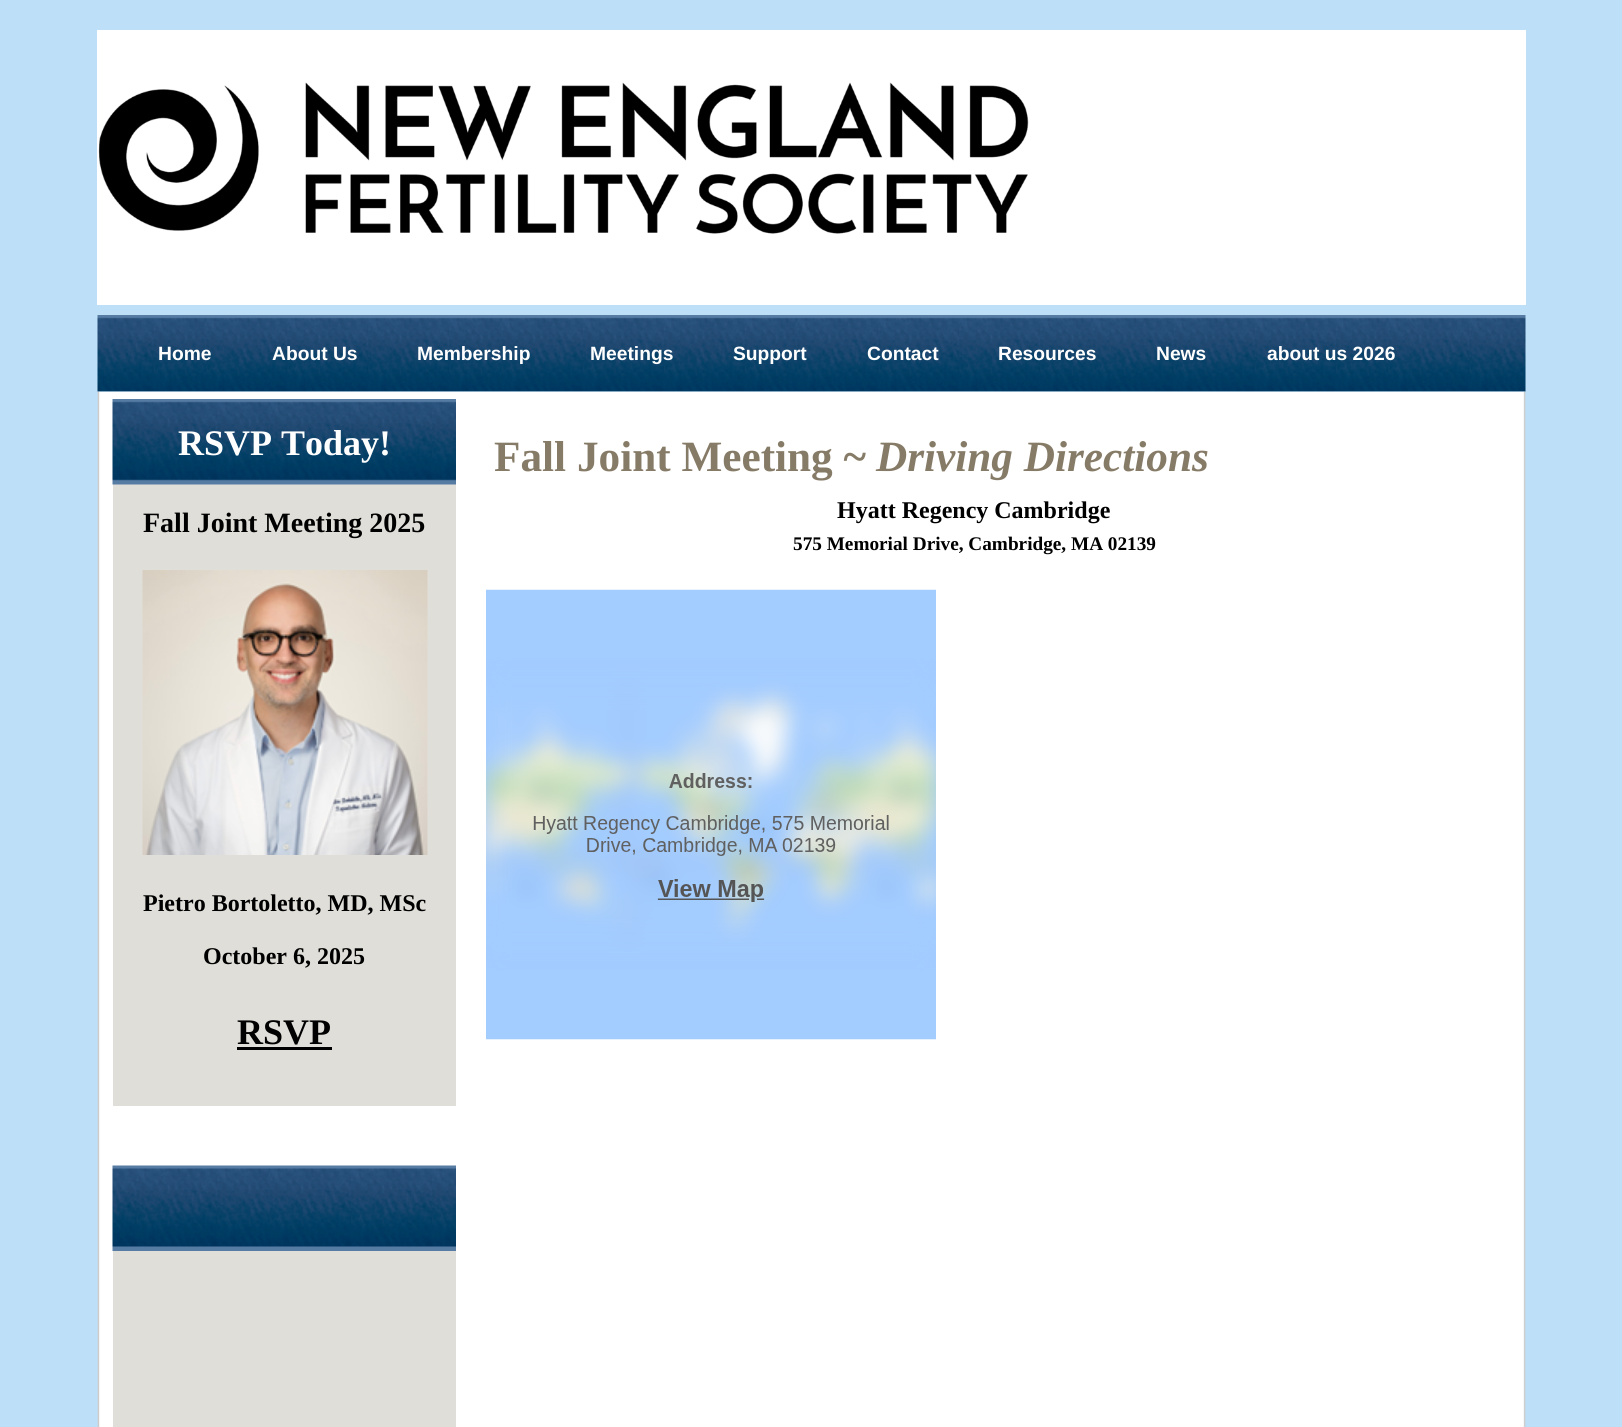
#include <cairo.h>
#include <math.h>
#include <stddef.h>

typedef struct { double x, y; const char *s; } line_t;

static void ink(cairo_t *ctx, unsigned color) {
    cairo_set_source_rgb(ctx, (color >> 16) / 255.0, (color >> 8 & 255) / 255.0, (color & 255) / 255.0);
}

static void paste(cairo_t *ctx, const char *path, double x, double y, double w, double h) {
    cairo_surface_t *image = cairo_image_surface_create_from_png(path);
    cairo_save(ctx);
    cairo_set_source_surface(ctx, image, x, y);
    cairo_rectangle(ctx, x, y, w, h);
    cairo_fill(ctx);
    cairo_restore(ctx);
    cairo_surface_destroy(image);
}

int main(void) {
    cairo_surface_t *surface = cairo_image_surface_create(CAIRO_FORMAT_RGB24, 1622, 1427);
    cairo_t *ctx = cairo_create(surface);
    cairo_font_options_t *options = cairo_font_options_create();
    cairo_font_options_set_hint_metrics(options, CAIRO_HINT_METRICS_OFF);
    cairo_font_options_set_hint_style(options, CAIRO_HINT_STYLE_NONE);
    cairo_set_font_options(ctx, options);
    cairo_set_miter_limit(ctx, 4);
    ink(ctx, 0xBDE0F8);
    cairo_paint(ctx);
    ink(ctx, 0xFFFFFF);
    cairo_rectangle(ctx, 97, 30, 1429, 275);
    cairo_fill(ctx);
    paste(ctx, "media/1.png", 98, 82, 931, 152);
    paste(ctx, "media/2.png", 97, 315, 1429, 77);
    cairo_select_font_face(ctx, "Liberation Sans", CAIRO_FONT_SLANT_NORMAL, CAIRO_FONT_WEIGHT_BOLD);
    cairo_set_font_size(ctx, 19.25);
    {
        static const line_t items[] = {
            {158, 360, "Home"},
            {272, 360, "About Us"},
            {417, 360, "Membership"},
            {590, 360, "Meetings"},
            {733, 360, "Support"},
            {867, 360, "Contact"},
            {998, 360, "Resources"},
            {1156, 360, "News"},
            {1267, 360, "about us 2026"},
        };
        for (size_t i = 0; i < sizeof items / sizeof *items; i++) {
            cairo_move_to(ctx, items[i].x, items[i].y);
            cairo_show_text(ctx, items[i].s);
        }
    }
    paste(ctx, "media/3.png", 97, 391, 1429, 1036);
    ink(ctx, 0xE0DED8);
    cairo_rectangle(ctx, 113, 484, 343, 622);
    cairo_fill(ctx);
    paste(ctx, "media/4.png", 112, 399, 344, 86);
    cairo_select_font_face(ctx, "Liberation Serif", CAIRO_FONT_SLANT_NORMAL, CAIRO_FONT_WEIGHT_BOLD);
    cairo_set_font_size(ctx, 36);
    ink(ctx, 0xFFFFFF);
    cairo_move_to(ctx, 178, 455);
    cairo_show_text(ctx, "RSVP Today!");
    cairo_set_font_size(ctx, 28);
    ink(ctx, 0x000000);
    cairo_move_to(ctx, 143, 532);
    cairo_show_text(ctx, "Fall Joint Meeting 2025");
    paste(ctx, "media/5.png", 142, 570, 286, 285);
    cairo_set_font_size(ctx, 24);
    cairo_move_to(ctx, 143, 911);
    cairo_show_text(ctx, "Pietro Bortoletto, MD, MSc");
    cairo_move_to(ctx, 203, 964);
    cairo_show_text(ctx, "October 6, 2025");
    cairo_set_font_size(ctx, 36);
    cairo_move_to(ctx, 237, 1044);
    cairo_show_text(ctx, "RSVP");
    cairo_rectangle(ctx, 237, 1047, 95, 3);
    cairo_fill(ctx);
    ink(ctx, 0xE0DED8);
    cairo_rectangle(ctx, 113, 1251, 343, 176);
    cairo_fill(ctx);
    paste(ctx, "media/6.png", 112, 1165, 344, 86);
    cairo_set_font_size(ctx, 43.25);
    ink(ctx, 0x867B67);
    cairo_move_to(ctx, 494, 471);
    cairo_show_text(ctx, "Fall Joint Meeting ~");
    cairo_select_font_face(ctx, "Liberation Serif", CAIRO_FONT_SLANT_ITALIC, CAIRO_FONT_WEIGHT_BOLD);
    cairo_move_to(ctx, 876, 471);
    cairo_show_text(ctx, "Driving Directions");
    cairo_select_font_face(ctx, "Liberation Serif", CAIRO_FONT_SLANT_NORMAL, CAIRO_FONT_WEIGHT_BOLD);
    cairo_set_font_size(ctx, 24);
    ink(ctx, 0x000000);
    cairo_move_to(ctx, 837, 518);
    cairo_show_text(ctx, "Hyatt Regency Cambridge");
    cairo_set_font_size(ctx, 19.25);
    cairo_move_to(ctx, 793, 550);
    cairo_show_text(ctx, "575 Memorial Drive, Cambridge, MA 02139");
    paste(ctx, "media/7.png", 486, 589, 450, 451);
    cairo_surface_write_to_png(surface, "image.png");
    cairo_font_options_destroy(options);
    cairo_destroy(ctx);
    cairo_surface_destroy(surface);
    return 0;
}
